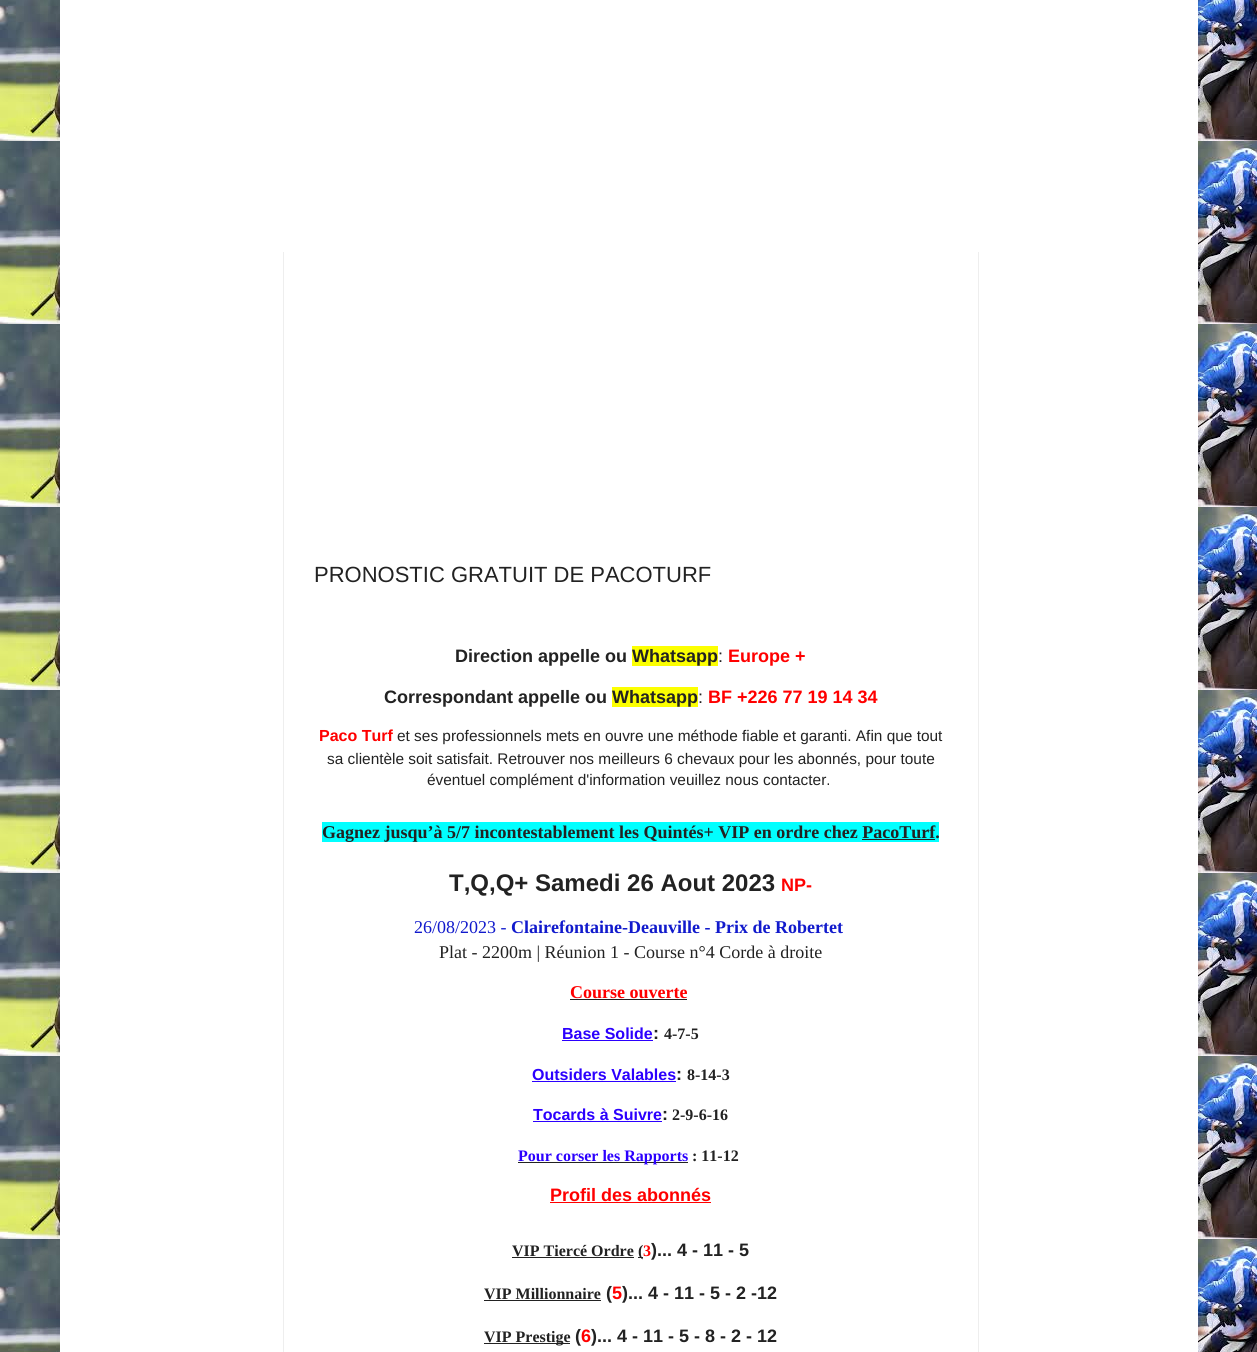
#include <cairo.h>
#include <math.h>
#include <stddef.h>

typedef struct { double x, y; const char *s; } line_t;

static void ink(cairo_t *ctx, unsigned color) {
    cairo_set_source_rgb(ctx, (color >> 16) / 255.0, (color >> 8 & 255) / 255.0, (color & 255) / 255.0);
}

static void round_path(cairo_t *ctx, double x, double y, double w, double h, double r) {
    cairo_new_sub_path(ctx);
    cairo_arc(ctx, x + w - r, y + h - r, r, 0, M_PI / 2);
    cairo_arc(ctx, x + r, y + h - r, r, M_PI / 2, M_PI);
    cairo_arc(ctx, x + r, y + r, r, M_PI, 1.5 * M_PI);
    cairo_arc(ctx, x + w - r, y + r, r, 1.5 * M_PI, 2 * M_PI);
    cairo_close_path(ctx);
}

static void blur_box(cairo_t *ctx, double x, double y, double w, double h, double r, double blur, double alpha) {
    cairo_push_group_with_content(ctx, CAIRO_CONTENT_ALPHA);
    cairo_set_operator(ctx, CAIRO_OPERATOR_SOURCE);
    for (int i = 15; i >= -15 && fmin(w, h) + blur * i / 3 > 0; i -= 2) {
        double e = blur * i / 6;
        cairo_set_source_rgba(ctx, 0, 0, 0, alpha * erfc((i - 1) / 8.5) / 2);
        round_path(ctx, x - e, y - e, w + 2 * e, h + 2 * e, fmax(0, fmin(r + e + blur * .6, fmin(w, h) / 2 + e)));
        cairo_fill(ctx);
    }
    cairo_pattern_t *soft = cairo_pop_group(ctx);
    cairo_mask(ctx, soft);
    cairo_pattern_destroy(soft);
}

static void paste(cairo_t *ctx, const char *path, double x, double y, double w, double h) {
    cairo_surface_t *image = cairo_image_surface_create_from_png(path);
    cairo_save(ctx);
    cairo_set_source_surface(ctx, image, x, y);
    cairo_rectangle(ctx, x, y, w, h);
    cairo_fill(ctx);
    cairo_restore(ctx);
    cairo_surface_destroy(image);
}

int main(void) {
    cairo_surface_t *surface = cairo_image_surface_create(CAIRO_FORMAT_RGB24, 1257, 1352);
    cairo_t *ctx = cairo_create(surface);
    cairo_font_options_t *options = cairo_font_options_create();
    cairo_font_options_set_hint_metrics(options, CAIRO_HINT_METRICS_OFF);
    cairo_font_options_set_hint_style(options, CAIRO_HINT_STYLE_NONE);
    cairo_set_font_options(ctx, options);
    cairo_set_miter_limit(ctx, 4);
    ink(ctx, 0xFFFFFF);
    cairo_paint(ctx);
    paste(ctx, "media/1.png", 0, 0, 1257, 1352);
    ink(ctx, 0x000000);
    blur_box(ctx, 60, -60, 1138, 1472, 0, 20, 0.15);
    ink(ctx, 0xFFFFFF);
    cairo_rectangle(ctx, 60, 0, 1138, 1352);
    cairo_fill(ctx);
    ink(ctx, 0xEEEEEE);
    cairo_rectangle(ctx, 283, 252, 1, 1100);
    cairo_fill(ctx);
    cairo_select_font_face(ctx, "Liberation Sans", CAIRO_FONT_SLANT_NORMAL, CAIRO_FONT_WEIGHT_NORMAL);
    cairo_set_font_size(ctx, 22);
    ink(ctx, 0x222222);
    cairo_move_to(ctx, 314, 582);
    cairo_show_text(ctx, "PRONOSTIC GRATUIT DE PACOTURF");
    cairo_select_font_face(ctx, "Liberation Sans", CAIRO_FONT_SLANT_NORMAL, CAIRO_FONT_WEIGHT_BOLD);
    cairo_set_font_size(ctx, 18);
    cairo_move_to(ctx, 455, 662);
    cairo_show_text(ctx, "Direction appelle ou");
    ink(ctx, 0xFCFF01);
    cairo_rectangle(ctx, 632, 646, 86, 20);
    cairo_fill(ctx);
    ink(ctx, 0x222222);
    cairo_move_to(ctx, 632, 662);
    cairo_show_text(ctx, "Whatsapp");
    cairo_select_font_face(ctx, "Liberation Sans", CAIRO_FONT_SLANT_NORMAL, CAIRO_FONT_WEIGHT_NORMAL);
    cairo_move_to(ctx, 718, 662);
    cairo_show_text(ctx, ":");
    cairo_select_font_face(ctx, "Liberation Sans", CAIRO_FONT_SLANT_NORMAL, CAIRO_FONT_WEIGHT_BOLD);
    ink(ctx, 0xFF0000);
    cairo_move_to(ctx, 728, 662);
    cairo_show_text(ctx, "Europe +");
    ink(ctx, 0x222222);
    cairo_move_to(ctx, 384, 703);
    cairo_show_text(ctx, "Correspondant appelle ou");
    ink(ctx, 0xFCFF01);
    cairo_rectangle(ctx, 612, 687, 86, 20);
    cairo_fill(ctx);
    ink(ctx, 0x222222);
    cairo_move_to(ctx, 612, 703);
    cairo_show_text(ctx, "Whatsapp");
    cairo_select_font_face(ctx, "Liberation Sans", CAIRO_FONT_SLANT_NORMAL, CAIRO_FONT_WEIGHT_NORMAL);
    cairo_move_to(ctx, 698, 703);
    cairo_show_text(ctx, ":");
    cairo_select_font_face(ctx, "Liberation Sans", CAIRO_FONT_SLANT_NORMAL, CAIRO_FONT_WEIGHT_BOLD);
    ink(ctx, 0xFF0000);
    cairo_move_to(ctx, 708, 703);
    cairo_show_text(ctx, "BF +226 77 19 14 34");
    cairo_set_font_size(ctx, 16);
    cairo_move_to(ctx, 319, 741);
    cairo_show_text(ctx, "Paco Turf");
    cairo_select_font_face(ctx, "Liberation Sans", CAIRO_FONT_SLANT_NORMAL, CAIRO_FONT_WEIGHT_NORMAL);
    cairo_set_font_size(ctx, 15.4);
    ink(ctx, 0x222222);
    {
        static const line_t items[] = {
            {397, 741, "et ses professionnels mets en ouvre une méthode fiable et garanti. Afin que tout"},
            {327, 764, "sa clientèle soit satisfait. Retrouver nos meilleurs 6 chevaux pour les abonnés, pour toute"},
            {427, 785, "éventuel complément d'information veuillez nous contacter."},
        };
        for (size_t i = 0; i < sizeof items / sizeof *items; i++) {
            cairo_move_to(ctx, items[i].x, items[i].y);
            cairo_show_text(ctx, items[i].s);
        }
    }
    ink(ctx, 0x01FFFF);
    cairo_rectangle(ctx, 322, 822, 617, 20);
    cairo_fill(ctx);
    cairo_select_font_face(ctx, "Liberation Serif", CAIRO_FONT_SLANT_NORMAL, CAIRO_FONT_WEIGHT_BOLD);
    cairo_set_font_size(ctx, 18);
    ink(ctx, 0x222222);
    cairo_move_to(ctx, 322, 838);
    cairo_show_text(ctx, "Gagnez jusqu’à 5/7 incontestablement les Quintés+ VIP en ordre chez PacoTurf.");
    cairo_rectangle(ctx, 862, 839, 73, 1);
    cairo_fill(ctx);
    cairo_select_font_face(ctx, "Liberation Sans", CAIRO_FONT_SLANT_NORMAL, CAIRO_FONT_WEIGHT_BOLD);
    cairo_set_font_size(ctx, 24);
    cairo_move_to(ctx, 449, 891);
    cairo_show_text(ctx, "T,Q,Q+ Samedi 26 Aout 2023");
    cairo_set_font_size(ctx, 18);
    ink(ctx, 0xFF0000);
    cairo_move_to(ctx, 781, 891);
    cairo_show_text(ctx, "NP-");
    cairo_select_font_face(ctx, "Liberation Serif", CAIRO_FONT_SLANT_NORMAL, CAIRO_FONT_WEIGHT_NORMAL);
    ink(ctx, 0x111ACC);
    cairo_move_to(ctx, 414, 933);
    cairo_show_text(ctx, "26/08/2023 -");
    cairo_select_font_face(ctx, "Liberation Serif", CAIRO_FONT_SLANT_NORMAL, CAIRO_FONT_WEIGHT_BOLD);
    cairo_move_to(ctx, 511, 933);
    cairo_show_text(ctx, "Clairefontaine-Deauville - Prix de Robertet");
    cairo_select_font_face(ctx, "Liberation Serif", CAIRO_FONT_SLANT_NORMAL, CAIRO_FONT_WEIGHT_NORMAL);
    ink(ctx, 0x222222);
    cairo_move_to(ctx, 439, 958);
    cairo_show_text(ctx, "Plat - 2200m | Réunion 1 - Course n°4 Corde à droite");
    cairo_select_font_face(ctx, "Liberation Serif", CAIRO_FONT_SLANT_NORMAL, CAIRO_FONT_WEIGHT_BOLD);
    ink(ctx, 0xFF0000);
    cairo_move_to(ctx, 570, 998);
    cairo_show_text(ctx, "Course ouverte");
    ink(ctx, 0x222222);
    cairo_rectangle(ctx, 570, 999, 117, 1);
    cairo_fill(ctx);
    cairo_select_font_face(ctx, "Liberation Sans", CAIRO_FONT_SLANT_NORMAL, CAIRO_FONT_WEIGHT_BOLD);
    cairo_set_font_size(ctx, 16);
    ink(ctx, 0x2B00FE);
    cairo_move_to(ctx, 562, 1039);
    cairo_show_text(ctx, "Base Solide");
    cairo_rectangle(ctx, 562, 1040, 91, 1);
    cairo_fill(ctx);
    cairo_set_font_size(ctx, 18);
    ink(ctx, 0x222222);
    cairo_move_to(ctx, 653, 1039);
    cairo_show_text(ctx, ":");
    cairo_select_font_face(ctx, "Liberation Serif", CAIRO_FONT_SLANT_NORMAL, CAIRO_FONT_WEIGHT_BOLD);
    cairo_set_font_size(ctx, 16);
    cairo_move_to(ctx, 664, 1039);
    cairo_show_text(ctx, "4-7-5");
    cairo_select_font_face(ctx, "Liberation Sans", CAIRO_FONT_SLANT_NORMAL, CAIRO_FONT_WEIGHT_BOLD);
    ink(ctx, 0x2B00FE);
    cairo_move_to(ctx, 532, 1080);
    cairo_show_text(ctx, "Outsiders Valables");
    cairo_rectangle(ctx, 532, 1081, 144, 1);
    cairo_fill(ctx);
    cairo_set_font_size(ctx, 18);
    ink(ctx, 0x222222);
    cairo_move_to(ctx, 676, 1080);
    cairo_show_text(ctx, ":");
    cairo_select_font_face(ctx, "Liberation Serif", CAIRO_FONT_SLANT_NORMAL, CAIRO_FONT_WEIGHT_BOLD);
    cairo_set_font_size(ctx, 16);
    cairo_move_to(ctx, 687, 1080);
    cairo_show_text(ctx, "8-14-3");
    cairo_select_font_face(ctx, "Liberation Sans", CAIRO_FONT_SLANT_NORMAL, CAIRO_FONT_WEIGHT_BOLD);
    ink(ctx, 0x2B00FE);
    cairo_move_to(ctx, 533, 1120);
    cairo_show_text(ctx, "Tocards à Suivre");
    cairo_rectangle(ctx, 533, 1121, 129, 1);
    cairo_fill(ctx);
    cairo_set_font_size(ctx, 18);
    ink(ctx, 0x222222);
    cairo_move_to(ctx, 662, 1120);
    cairo_show_text(ctx, ":");
    cairo_select_font_face(ctx, "Liberation Serif", CAIRO_FONT_SLANT_NORMAL, CAIRO_FONT_WEIGHT_BOLD);
    cairo_set_font_size(ctx, 16);
    cairo_move_to(ctx, 672, 1120);
    cairo_show_text(ctx, "2-9-6-16");
    cairo_rectangle(ctx, 518, 1162, 170, 1);
    cairo_fill(ctx);
    ink(ctx, 0x2B00FE);
    cairo_move_to(ctx, 518, 1161);
    cairo_show_text(ctx, "Pour corser les Rapports");
    ink(ctx, 0x222222);
    cairo_move_to(ctx, 692, 1161);
    cairo_show_text(ctx, ": 11-12");
    cairo_select_font_face(ctx, "Liberation Sans", CAIRO_FONT_SLANT_NORMAL, CAIRO_FONT_WEIGHT_BOLD);
    cairo_set_font_size(ctx, 18);
    ink(ctx, 0xFF0000);
    cairo_move_to(ctx, 550, 1201);
    cairo_show_text(ctx, "Profil des abonnés");
    cairo_rectangle(ctx, 550, 1202, 161, 1);
    cairo_fill(ctx);
    cairo_select_font_face(ctx, "Liberation Serif", CAIRO_FONT_SLANT_NORMAL, CAIRO_FONT_WEIGHT_BOLD);
    cairo_set_font_size(ctx, 16);
    ink(ctx, 0x222222);
    cairo_move_to(ctx, 512, 1256);
    cairo_show_text(ctx, "VIP Tiercé Ordre");
    cairo_rectangle(ctx, 512, 1257, 122, 1);
    cairo_fill(ctx);
    cairo_rectangle(ctx, 638, 1257, 5, 1);
    cairo_fill(ctx);
    cairo_move_to(ctx, 638, 1256);
    cairo_show_text(ctx, "(");
    ink(ctx, 0xFF0000);
    cairo_move_to(ctx, 643, 1256);
    cairo_show_text(ctx, "3");
    cairo_select_font_face(ctx, "Liberation Sans", CAIRO_FONT_SLANT_NORMAL, CAIRO_FONT_WEIGHT_BOLD);
    cairo_set_font_size(ctx, 18);
    ink(ctx, 0x222222);
    cairo_move_to(ctx, 651, 1256);
    cairo_show_text(ctx, ")... 4 - 11 - 5");
    cairo_select_font_face(ctx, "Liberation Serif", CAIRO_FONT_SLANT_NORMAL, CAIRO_FONT_WEIGHT_BOLD);
    cairo_set_font_size(ctx, 16);
    cairo_move_to(ctx, 484, 1299);
    cairo_show_text(ctx, "VIP Millionnaire");
    cairo_rectangle(ctx, 484, 1300, 117, 1);
    cairo_fill(ctx);
    cairo_select_font_face(ctx, "Liberation Sans", CAIRO_FONT_SLANT_NORMAL, CAIRO_FONT_WEIGHT_BOLD);
    cairo_set_font_size(ctx, 18);
    cairo_move_to(ctx, 606, 1299);
    cairo_show_text(ctx, "(");
    ink(ctx, 0xFF0000);
    cairo_move_to(ctx, 612, 1299);
    cairo_show_text(ctx, "5");
    ink(ctx, 0x222222);
    cairo_move_to(ctx, 622, 1299);
    cairo_show_text(ctx, ")... 4 - 11 - 5 - 2 -12");
    cairo_rectangle(ctx, 484, 1343, 86, 1);
    cairo_fill(ctx);
    cairo_select_font_face(ctx, "Liberation Serif", CAIRO_FONT_SLANT_NORMAL, CAIRO_FONT_WEIGHT_BOLD);
    cairo_set_font_size(ctx, 16);
    cairo_move_to(ctx, 484, 1342);
    cairo_show_text(ctx, "VIP Prestige");
    cairo_select_font_face(ctx, "Liberation Sans", CAIRO_FONT_SLANT_NORMAL, CAIRO_FONT_WEIGHT_BOLD);
    cairo_set_font_size(ctx, 18);
    cairo_move_to(ctx, 575, 1342);
    cairo_show_text(ctx, "(");
    ink(ctx, 0xFF0000);
    cairo_move_to(ctx, 581, 1342);
    cairo_show_text(ctx, "6");
    ink(ctx, 0x222222);
    cairo_move_to(ctx, 591, 1342);
    cairo_show_text(ctx, ")... 4 - 11 - 5 - 8 - 2 - 12");
    ink(ctx, 0xEEEEEE);
    cairo_rectangle(ctx, 978, 252, 1, 1100);
    cairo_fill(ctx);
    cairo_surface_write_to_png(surface, "image.png");
    cairo_font_options_destroy(options);
    cairo_destroy(ctx);
    cairo_surface_destroy(surface);
    return 0;
}
